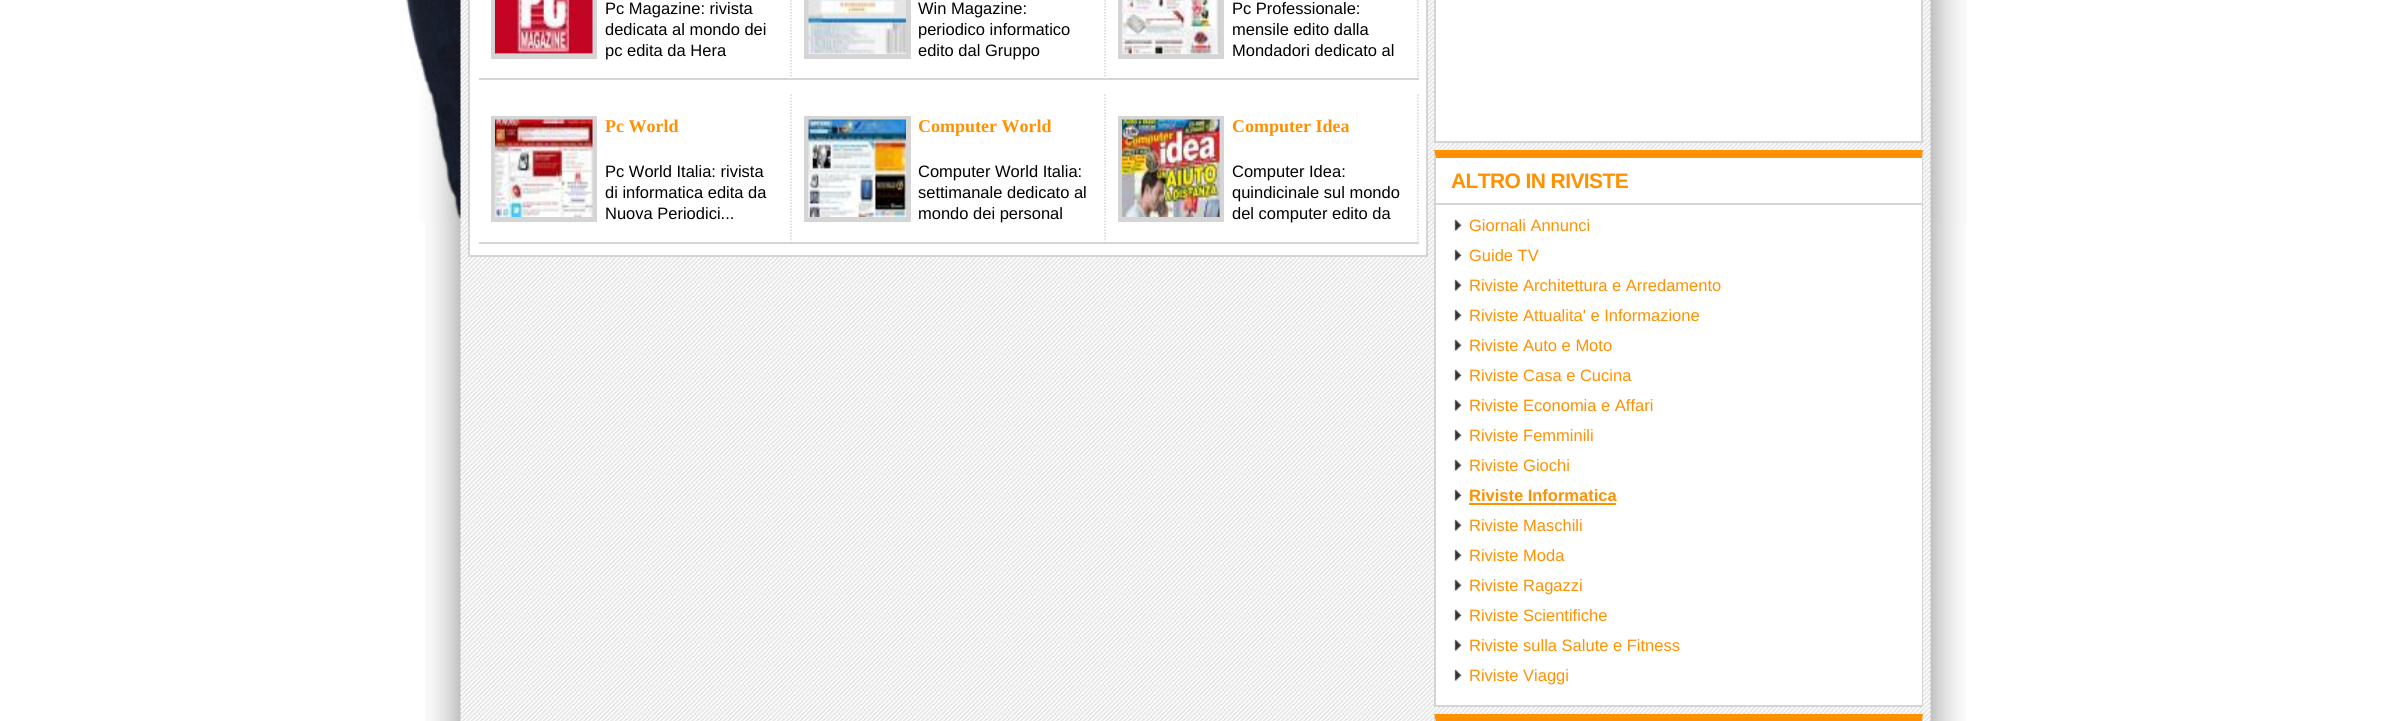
#include <cairo.h>
#include <math.h>
#include <stddef.h>

typedef struct { double x, y; const char *s; } line_t;

static void ink(cairo_t *ctx, unsigned color) {
    cairo_set_source_rgb(ctx, (color >> 16) / 255.0, (color >> 8 & 255) / 255.0, (color & 255) / 255.0);
}

static void write_spaced(cairo_t *ctx, double x, double y, const char *s, double letter, double word) {
    cairo_move_to(ctx, x, y);
    while (*s) {
        char ch[5] = {0};
        int n = 0;
        do ch[n++] = *s++; while ((*s & 0xC0) == 0x80);
        cairo_show_text(ctx, ch);
        cairo_rel_move_to(ctx, letter + word * (*ch == ' '), 0);
    }
}

static void paste(cairo_t *ctx, const char *path, double x, double y, double w, double h) {
    cairo_surface_t *image = cairo_image_surface_create_from_png(path);
    cairo_save(ctx);
    cairo_set_source_surface(ctx, image, x, y);
    cairo_rectangle(ctx, x, y, w, h);
    cairo_fill(ctx);
    cairo_restore(ctx);
    cairo_surface_destroy(image);
}

int main(void) {
    cairo_surface_t *surface = cairo_image_surface_create(CAIRO_FORMAT_RGB24, 2390, 721);
    cairo_t *ctx = cairo_create(surface);
    cairo_font_options_t *options = cairo_font_options_create();
    cairo_font_options_set_hint_metrics(options, CAIRO_HINT_METRICS_OFF);
    cairo_font_options_set_hint_style(options, CAIRO_HINT_STYLE_NONE);
    cairo_set_font_options(ctx, options);
    cairo_set_miter_limit(ctx, 4);
    ink(ctx, 0xFFFFFF);
    cairo_paint(ctx);
    paste(ctx, "media/1.png", 425, 223, 1541, 498);
    paste(ctx, "media/2.png", 399, 0, 1568, 223);
    ink(ctx, 0xFFFFFF);
    cairo_rectangle(ctx, 470, 0, 956, 255);
    cairo_fill(ctx);
    ink(ctx, 0xD5D5D5);
    cairo_new_path(ctx);
    cairo_move_to(ctx, 1428, -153);
    cairo_line_to(ctx, 1428, 256);
    cairo_line_to(ctx, 1426, 255);
    cairo_line_to(ctx, 1426, -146);
    cairo_close_path(ctx);
    cairo_fill(ctx);
    cairo_rectangle(ctx, 468, 255, 960, 2);
    cairo_fill(ctx);
    cairo_new_path(ctx);
    cairo_move_to(ctx, 468, 256);
    cairo_line_to(ctx, 468, -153);
    cairo_line_to(ctx, 470, -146);
    cairo_line_to(ctx, 470, 255);
    cairo_close_path(ctx);
    cairo_fill(ctx);
    cairo_new_path(ctx);
    cairo_move_to(ctx, 791, -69);
    cairo_line_to(ctx, 791, 79.5);
    cairo_set_line_width(ctx, 1.5);
    cairo_set_dash(ctx, (double[]){1.5, 1.5}, 2, 0);
    cairo_stroke(ctx);
    cairo_rectangle(ctx, 479, 78, 313, 2);
    cairo_fill(ctx);
    cairo_rectangle(ctx, 493.5, -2.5, 101, 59);
    cairo_set_line_width(ctx, 5);
    cairo_set_dash(ctx, NULL, 0, 0);
    cairo_stroke(ctx);
    paste(ctx, "media/3.png", 495, 0, 98, 54);
    cairo_select_font_face(ctx, "Liberation Sans", CAIRO_FONT_SLANT_NORMAL, CAIRO_FONT_WEIGHT_NORMAL);
    cairo_set_font_size(ctx, 16.5);
    ink(ctx, 0x000000);
    {
        static const line_t items[] = {
            {605, 14, "Pc Magazine: rivista"},
            {605, 35, "dedicata al mondo dei"},
            {605, 56, "pc edita da Hera"},
        };
        for (size_t i = 0; i < sizeof items / sizeof *items; i++) {
            cairo_move_to(ctx, items[i].x, items[i].y);
            cairo_show_text(ctx, items[i].s);
        }
    }
    cairo_new_path(ctx);
    cairo_move_to(ctx, 1105, -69);
    cairo_line_to(ctx, 1105, 79.5);
    ink(ctx, 0xD5D5D5);
    cairo_set_line_width(ctx, 1.5);
    cairo_set_dash(ctx, (double[]){1.5, 1.5}, 2, 0);
    cairo_stroke(ctx);
    cairo_rectangle(ctx, 792, 78, 314, 2);
    cairo_fill(ctx);
    cairo_rectangle(ctx, 806.5, -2.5, 102, 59);
    cairo_set_line_width(ctx, 5);
    cairo_set_dash(ctx, NULL, 0, 0);
    cairo_stroke(ctx);
    paste(ctx, "media/4.png", 808, 0, 98, 54);
    ink(ctx, 0x000000);
    {
        static const line_t items[] = {
            {918, 14, "Win Magazine:"},
            {918, 35, "periodico informatico"},
            {918, 56, "edito dal Gruppo"},
        };
        for (size_t i = 0; i < sizeof items / sizeof *items; i++) {
            cairo_move_to(ctx, items[i].x, items[i].y);
            cairo_show_text(ctx, items[i].s);
        }
    }
    cairo_new_path(ctx);
    cairo_move_to(ctx, 1418, -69);
    cairo_line_to(ctx, 1418, 79.5);
    ink(ctx, 0xD5D5D5);
    cairo_set_line_width(ctx, 1.5);
    cairo_set_dash(ctx, (double[]){1.5, 1.5}, 2, 0);
    cairo_stroke(ctx);
    cairo_rectangle(ctx, 1106, 78, 313, 2);
    cairo_fill(ctx);
    cairo_rectangle(ctx, 1120.5, -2.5, 101, 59);
    cairo_set_line_width(ctx, 5);
    cairo_set_dash(ctx, NULL, 0, 0);
    cairo_stroke(ctx);
    paste(ctx, "media/5.png", 1122, 0, 98, 54);
    ink(ctx, 0x000000);
    {
        static const line_t items[] = {
            {1232, 14, "Pc Professionale:"},
            {1232, 35, "mensile edito dalla"},
            {1232, 56, "Mondadori dedicato al"},
        };
        for (size_t i = 0; i < sizeof items / sizeof *items; i++) {
            cairo_move_to(ctx, items[i].x, items[i].y);
            cairo_show_text(ctx, items[i].s);
        }
    }
    cairo_new_path(ctx);
    cairo_move_to(ctx, 791, 94.5);
    cairo_line_to(ctx, 791, 243);
    ink(ctx, 0xD5D5D5);
    cairo_set_line_width(ctx, 1.5);
    cairo_set_dash(ctx, (double[]){1.5, 1.5}, 2, 0);
    cairo_stroke(ctx);
    cairo_rectangle(ctx, 479, 242, 313, 2);
    cairo_fill(ctx);
    cairo_rectangle(ctx, 493.5, 118.5, 101, 101);
    cairo_set_line_width(ctx, 5);
    cairo_set_dash(ctx, NULL, 0, 0);
    cairo_stroke(ctx);
    paste(ctx, "media/6.png", 495, 119, 98, 98);
    cairo_select_font_face(ctx, "Liberation Serif", CAIRO_FONT_SLANT_NORMAL, CAIRO_FONT_WEIGHT_BOLD);
    cairo_set_font_size(ctx, 18);
    ink(ctx, 0xFF9000);
    cairo_move_to(ctx, 605, 132);
    cairo_show_text(ctx, "Pc World");
    cairo_select_font_face(ctx, "Liberation Sans", CAIRO_FONT_SLANT_NORMAL, CAIRO_FONT_WEIGHT_NORMAL);
    cairo_set_font_size(ctx, 16.5);
    ink(ctx, 0x000000);
    {
        static const line_t items[] = {
            {605, 177, "Pc World Italia: rivista"},
            {605, 198, "di informatica edita da"},
            {605, 219, "Nuova Periodici..."},
        };
        for (size_t i = 0; i < sizeof items / sizeof *items; i++) {
            cairo_move_to(ctx, items[i].x, items[i].y);
            cairo_show_text(ctx, items[i].s);
        }
    }
    cairo_new_path(ctx);
    cairo_move_to(ctx, 1105, 94.5);
    cairo_line_to(ctx, 1105, 243);
    ink(ctx, 0xD5D5D5);
    cairo_set_line_width(ctx, 1.5);
    cairo_set_dash(ctx, (double[]){1.5, 1.5}, 2, 0);
    cairo_stroke(ctx);
    cairo_rectangle(ctx, 792, 242, 314, 2);
    cairo_fill(ctx);
    cairo_rectangle(ctx, 806.5, 118.5, 102, 101);
    cairo_set_line_width(ctx, 5);
    cairo_set_dash(ctx, NULL, 0, 0);
    cairo_stroke(ctx);
    paste(ctx, "media/7.png", 808, 119, 98, 98);
    cairo_select_font_face(ctx, "Liberation Serif", CAIRO_FONT_SLANT_NORMAL, CAIRO_FONT_WEIGHT_BOLD);
    cairo_set_font_size(ctx, 18);
    ink(ctx, 0xFF9000);
    cairo_move_to(ctx, 918, 132);
    cairo_show_text(ctx, "Computer World");
    cairo_select_font_face(ctx, "Liberation Sans", CAIRO_FONT_SLANT_NORMAL, CAIRO_FONT_WEIGHT_NORMAL);
    cairo_set_font_size(ctx, 16.5);
    ink(ctx, 0x000000);
    {
        static const line_t items[] = {
            {918, 177, "Computer World Italia:"},
            {918, 198, "settimanale dedicato al"},
            {918, 219, "mondo dei personal"},
        };
        for (size_t i = 0; i < sizeof items / sizeof *items; i++) {
            cairo_move_to(ctx, items[i].x, items[i].y);
            cairo_show_text(ctx, items[i].s);
        }
    }
    cairo_new_path(ctx);
    cairo_move_to(ctx, 1418, 94.5);
    cairo_line_to(ctx, 1418, 243);
    ink(ctx, 0xD5D5D5);
    cairo_set_line_width(ctx, 1.5);
    cairo_set_dash(ctx, (double[]){1.5, 1.5}, 2, 0);
    cairo_stroke(ctx);
    cairo_rectangle(ctx, 1106, 242, 313, 2);
    cairo_fill(ctx);
    cairo_rectangle(ctx, 1120.5, 118.5, 101, 101);
    cairo_set_line_width(ctx, 5);
    cairo_set_dash(ctx, NULL, 0, 0);
    cairo_stroke(ctx);
    paste(ctx, "media/8.png", 1122, 119, 98, 98);
    cairo_select_font_face(ctx, "Liberation Serif", CAIRO_FONT_SLANT_NORMAL, CAIRO_FONT_WEIGHT_BOLD);
    cairo_set_font_size(ctx, 18);
    ink(ctx, 0xFF9000);
    cairo_move_to(ctx, 1232, 132);
    cairo_show_text(ctx, "Computer Idea");
    cairo_select_font_face(ctx, "Liberation Sans", CAIRO_FONT_SLANT_NORMAL, CAIRO_FONT_WEIGHT_NORMAL);
    cairo_set_font_size(ctx, 16.5);
    ink(ctx, 0x000000);
    {
        static const line_t items[] = {
            {1232, 177, "Computer Idea:"},
            {1232, 198, "quindicinale sul mondo"},
            {1232, 219, "del computer edito da"},
        };
        for (size_t i = 0; i < sizeof items / sizeof *items; i++) {
            cairo_move_to(ctx, items[i].x, items[i].y);
            cairo_show_text(ctx, items[i].s);
        }
    }
    ink(ctx, 0xFFFFFF);
    cairo_rectangle(ctx, 1435, -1, 487, 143);
    cairo_fill_preserve(ctx);
    ink(ctx, 0xD5D5D5);
    cairo_set_line_width(ctx, 2);
    cairo_stroke(ctx);
    ink(ctx, 0xFFFFFF);
    cairo_rectangle(ctx, 1436, 158, 486, 547);
    cairo_fill(ctx);
    ink(ctx, 0xFF9000);
    cairo_new_path(ctx);
    cairo_move_to(ctx, 1434, 150);
    cairo_line_to(ctx, 1923, 150);
    cairo_line_to(ctx, 1922, 158);
    cairo_line_to(ctx, 1436, 158);
    cairo_close_path(ctx);
    cairo_fill(ctx);
    ink(ctx, 0xD5D5D5);
    cairo_new_path(ctx);
    cairo_move_to(ctx, 1923, 150);
    cairo_line_to(ctx, 1923, 706);
    cairo_line_to(ctx, 1922, 705);
    cairo_line_to(ctx, 1922, 158);
    cairo_close_path(ctx);
    cairo_fill(ctx);
    cairo_rectangle(ctx, 1434, 705, 489, 2);
    cairo_fill(ctx);
    cairo_new_path(ctx);
    cairo_move_to(ctx, 1434, 706);
    cairo_line_to(ctx, 1434, 150);
    cairo_line_to(ctx, 1436, 158);
    cairo_line_to(ctx, 1436, 705);
    cairo_close_path(ctx);
    cairo_fill(ctx);
    cairo_rectangle(ctx, 1436, 203, 486, 2);
    cairo_fill(ctx);
    cairo_select_font_face(ctx, "Liberation Sans", CAIRO_FONT_SLANT_NORMAL, CAIRO_FONT_WEIGHT_BOLD);
    cairo_set_font_size(ctx, 21);
    ink(ctx, 0xFF9000);
    write_spaced(ctx, 1451, 188, "ALTRO IN RIVISTE", -0.6, 0);
    paste(ctx, "media/9.png", 1454, 219, 8, 12);
    cairo_select_font_face(ctx, "Liberation Sans", CAIRO_FONT_SLANT_NORMAL, CAIRO_FONT_WEIGHT_NORMAL);
    cairo_set_font_size(ctx, 16.5);
    cairo_move_to(ctx, 1469, 231);
    cairo_show_text(ctx, "Giornali Annunci");
    paste(ctx, "media/9.png", 1454, 249, 8, 12);
    cairo_move_to(ctx, 1469, 261);
    cairo_show_text(ctx, "Guide TV");
    paste(ctx, "media/9.png", 1454, 279, 8, 12);
    cairo_move_to(ctx, 1469, 291);
    cairo_show_text(ctx, "Riviste Architettura e Arredamento");
    paste(ctx, "media/9.png", 1454, 309, 8, 12);
    cairo_move_to(ctx, 1469, 321);
    cairo_show_text(ctx, "Riviste Attualita' e Informazione");
    paste(ctx, "media/9.png", 1454, 339, 8, 12);
    cairo_move_to(ctx, 1469, 351);
    cairo_show_text(ctx, "Riviste Auto e Moto");
    paste(ctx, "media/9.png", 1454, 369, 8, 12);
    cairo_move_to(ctx, 1469, 381);
    cairo_show_text(ctx, "Riviste Casa e Cucina");
    paste(ctx, "media/9.png", 1454, 399, 8, 12);
    cairo_move_to(ctx, 1469, 411);
    cairo_show_text(ctx, "Riviste Economia e Affari");
    paste(ctx, "media/9.png", 1454, 429, 8, 12);
    cairo_move_to(ctx, 1469, 441);
    cairo_show_text(ctx, "Riviste Femminili");
    paste(ctx, "media/9.png", 1454, 459, 8, 12);
    cairo_move_to(ctx, 1469, 471);
    cairo_show_text(ctx, "Riviste Giochi");
    paste(ctx, "media/9.png", 1454, 489, 8, 12);
    cairo_select_font_face(ctx, "Liberation Sans", CAIRO_FONT_SLANT_NORMAL, CAIRO_FONT_WEIGHT_BOLD);
    cairo_move_to(ctx, 1469, 501);
    cairo_show_text(ctx, "Riviste Informatica");
    cairo_rectangle(ctx, 1469, 503, 147, 2);
    cairo_fill(ctx);
    paste(ctx, "media/9.png", 1454, 519, 8, 12);
    cairo_select_font_face(ctx, "Liberation Sans", CAIRO_FONT_SLANT_NORMAL, CAIRO_FONT_WEIGHT_NORMAL);
    cairo_move_to(ctx, 1469, 531);
    cairo_show_text(ctx, "Riviste Maschili");
    paste(ctx, "media/9.png", 1454, 549, 8, 12);
    cairo_move_to(ctx, 1469, 561);
    cairo_show_text(ctx, "Riviste Moda");
    paste(ctx, "media/9.png", 1454, 579, 8, 12);
    cairo_move_to(ctx, 1469, 591);
    cairo_show_text(ctx, "Riviste Ragazzi");
    paste(ctx, "media/9.png", 1454, 609, 8, 12);
    cairo_move_to(ctx, 1469, 621);
    cairo_show_text(ctx, "Riviste Scientifiche");
    paste(ctx, "media/9.png", 1454, 639, 8, 12);
    cairo_move_to(ctx, 1469, 651);
    cairo_show_text(ctx, "Riviste sulla Salute e Fitness");
    paste(ctx, "media/9.png", 1454, 669, 8, 12);
    cairo_move_to(ctx, 1469, 681);
    cairo_show_text(ctx, "Riviste Viaggi");
    cairo_new_path(ctx);
    cairo_move_to(ctx, 1434, 714);
    cairo_line_to(ctx, 1923, 714);
    cairo_line_to(ctx, 1922, 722);
    cairo_line_to(ctx, 1436, 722);
    cairo_close_path(ctx);
    cairo_fill(ctx);
    ink(ctx, 0xD5D5D5);
    cairo_new_path(ctx);
    cairo_move_to(ctx, 1923, 714);
    cairo_line_to(ctx, 1923, 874);
    cairo_line_to(ctx, 1922, 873);
    cairo_line_to(ctx, 1922, 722);
    cairo_close_path(ctx);
    cairo_fill(ctx);
    cairo_new_path(ctx);
    cairo_move_to(ctx, 1434, 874);
    cairo_line_to(ctx, 1434, 714);
    cairo_line_to(ctx, 1436, 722);
    cairo_line_to(ctx, 1436, 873);
    cairo_close_path(ctx);
    cairo_fill(ctx);
    cairo_surface_write_to_png(surface, "image.png");
    cairo_font_options_destroy(options);
    cairo_destroy(ctx);
    cairo_surface_destroy(surface);
    return 0;
}
